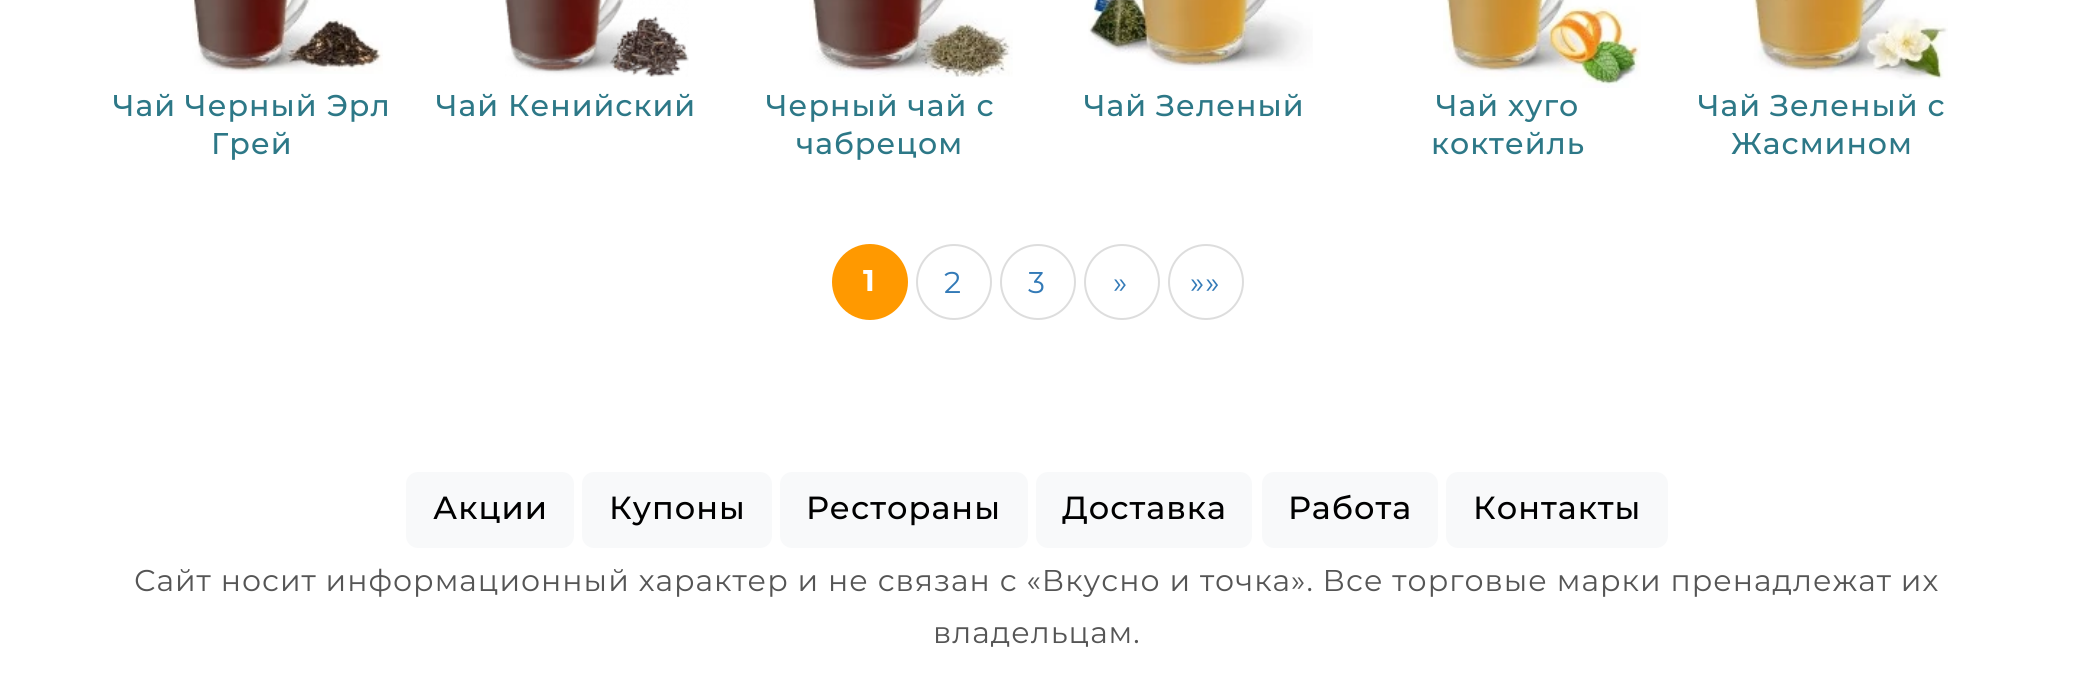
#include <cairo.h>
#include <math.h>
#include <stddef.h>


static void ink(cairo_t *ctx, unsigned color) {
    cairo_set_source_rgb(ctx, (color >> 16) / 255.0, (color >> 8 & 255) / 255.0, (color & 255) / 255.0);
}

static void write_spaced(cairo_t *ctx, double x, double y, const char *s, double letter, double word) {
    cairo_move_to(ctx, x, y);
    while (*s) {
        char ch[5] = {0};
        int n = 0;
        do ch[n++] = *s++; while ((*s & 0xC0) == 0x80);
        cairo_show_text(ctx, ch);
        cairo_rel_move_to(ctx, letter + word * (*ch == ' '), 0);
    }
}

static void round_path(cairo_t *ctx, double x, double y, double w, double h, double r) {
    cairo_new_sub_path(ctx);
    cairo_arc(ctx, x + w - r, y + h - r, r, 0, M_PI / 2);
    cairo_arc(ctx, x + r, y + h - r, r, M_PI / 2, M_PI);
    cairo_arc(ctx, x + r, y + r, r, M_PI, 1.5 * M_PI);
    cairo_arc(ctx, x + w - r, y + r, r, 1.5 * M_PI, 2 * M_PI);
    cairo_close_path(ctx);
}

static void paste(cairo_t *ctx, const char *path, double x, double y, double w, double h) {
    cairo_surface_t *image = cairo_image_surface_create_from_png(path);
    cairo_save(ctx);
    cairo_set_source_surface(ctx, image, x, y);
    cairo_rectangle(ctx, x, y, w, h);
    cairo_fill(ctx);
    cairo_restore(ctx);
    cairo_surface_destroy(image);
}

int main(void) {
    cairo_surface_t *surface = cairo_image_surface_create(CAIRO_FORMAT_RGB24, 2073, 692);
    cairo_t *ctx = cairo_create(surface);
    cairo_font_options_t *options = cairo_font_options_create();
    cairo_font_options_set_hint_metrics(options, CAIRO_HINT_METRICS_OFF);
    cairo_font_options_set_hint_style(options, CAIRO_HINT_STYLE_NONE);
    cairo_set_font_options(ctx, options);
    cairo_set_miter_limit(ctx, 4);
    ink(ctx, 0xFFFFFF);
    cairo_paint(ctx);
    paste(ctx, "media/1.png", 192, 0, 191, 74);
    cairo_select_font_face(ctx, "Montserrat Medium", CAIRO_FONT_SLANT_NORMAL, CAIRO_FONT_WEIGHT_NORMAL);
    cairo_set_font_size(ctx, 30);
    ink(ctx, 0x2D7887);
    write_spaced(ctx, 113, 116, "Чай Черный Эрл", 1, 0);
    write_spaced(ctx, 211, 154, "Грей", 1, 0);
    paste(ctx, "media/2.png", 505, 0, 184, 77);
    write_spaced(ctx, 436, 116, "Чай Кенийский", 1, 0);
    paste(ctx, "media/3.png", 809, 0, 204, 78);
    write_spaced(ctx, 766, 116, "Черный чай с", 1, 0);
    write_spaced(ctx, 796, 154, "чабрецом", 1, 0);
    paste(ctx, "media/4.png", 1088, 0, 225, 71);
    write_spaced(ctx, 1084, 116, "Чай Зеленый", 1, 0);
    paste(ctx, "media/5.png", 1443, 0, 198, 88);
    write_spaced(ctx, 1436, 116, "Чай хуго", 1, 0);
    write_spaced(ctx, 1431, 154, "коктейль", 1, 0);
    paste(ctx, "media/6.png", 1753, 0, 195, 80);
    write_spaced(ctx, 1698, 116, "Чай Зеленый с", 1, 0);
    write_spaced(ctx, 1731, 154, "Жасмином", 1, 0);
    ink(ctx, 0xFF9900);
    cairo_new_path(ctx);
    cairo_arc(ctx, 870, 282, 38, 0, 2 * M_PI);
    cairo_fill(ctx);
    cairo_select_font_face(ctx, "Montserrat", CAIRO_FONT_SLANT_NORMAL, CAIRO_FONT_WEIGHT_BOLD);
    ink(ctx, 0xFFFFFF);
    write_spaced(ctx, 863, 291, "1", 1, 0);
    cairo_new_path(ctx);
    cairo_arc(ctx, 954, 282, 37, 0, 2 * M_PI);
    ink(ctx, 0xDDDDDD);
    cairo_stroke(ctx);
    cairo_select_font_face(ctx, "Montserrat", CAIRO_FONT_SLANT_NORMAL, CAIRO_FONT_WEIGHT_NORMAL);
    ink(ctx, 0x337AB7);
    write_spaced(ctx, 944, 293, "2", 1, 0);
    cairo_new_path(ctx);
    cairo_arc(ctx, 1038, 282, 37, 0, 2 * M_PI);
    ink(ctx, 0xDDDDDD);
    cairo_stroke(ctx);
    ink(ctx, 0x337AB7);
    write_spaced(ctx, 1028, 293, "3", 1, 0);
    cairo_new_path(ctx);
    cairo_arc(ctx, 1122, 282, 37, 0, 2 * M_PI);
    ink(ctx, 0xDDDDDD);
    cairo_stroke(ctx);
    ink(ctx, 0x337AB7);
    write_spaced(ctx, 1113, 293, "»", 1, 0);
    cairo_new_path(ctx);
    cairo_arc(ctx, 1206, 282, 37, 0, 2 * M_PI);
    ink(ctx, 0xDDDDDD);
    cairo_stroke(ctx);
    ink(ctx, 0x337AB7);
    write_spaced(ctx, 1190, 293, "»»", 1, 0);
    ink(ctx, 0xF8F9FA);
    round_path(ctx, 406, 472, 168, 76, 12);
    cairo_fill(ctx);
    cairo_select_font_face(ctx, "Montserrat Medium", CAIRO_FONT_SLANT_NORMAL, CAIRO_FONT_WEIGHT_NORMAL);
    cairo_set_font_size(ctx, 32);
    ink(ctx, 0x000000);
    write_spaced(ctx, 433, 519, "Акции", 1, 0);
    ink(ctx, 0xF8F9FA);
    round_path(ctx, 582, 472, 190, 76, 12);
    cairo_fill(ctx);
    ink(ctx, 0x000000);
    write_spaced(ctx, 609, 519, "Купоны", 1, 0);
    ink(ctx, 0xF8F9FA);
    round_path(ctx, 780, 472, 248, 76, 12);
    cairo_fill(ctx);
    ink(ctx, 0x000000);
    write_spaced(ctx, 806, 519, "Рестораны", 1, 0);
    ink(ctx, 0xF8F9FA);
    round_path(ctx, 1036, 472, 216, 76, 12);
    cairo_fill(ctx);
    ink(ctx, 0x000000);
    write_spaced(ctx, 1062, 519, "Доставка", 1, 0);
    ink(ctx, 0xF8F9FA);
    round_path(ctx, 1262, 472, 176, 76, 12);
    cairo_fill(ctx);
    ink(ctx, 0x000000);
    write_spaced(ctx, 1288, 519, "Работа", 1, 0);
    ink(ctx, 0xF8F9FA);
    round_path(ctx, 1446, 472, 222, 76, 12);
    cairo_fill(ctx);
    ink(ctx, 0x000000);
    write_spaced(ctx, 1473, 519, "Контакты", 1, 0);
    cairo_select_font_face(ctx, "Montserrat", CAIRO_FONT_SLANT_NORMAL, CAIRO_FONT_WEIGHT_NORMAL);
    cairo_set_font_size(ctx, 30);
    ink(ctx, 0x555555);
    write_spaced(ctx, 134, 591, "Сайт носит информационный характер и не связан с «Вкусно и точка». Все торговые марки пренадлежат их", 1, 0);
    write_spaced(ctx, 933, 643, "владельцам.", 1, 0);
    cairo_surface_write_to_png(surface, "image.png");
    cairo_font_options_destroy(options);
    cairo_destroy(ctx);
    cairo_surface_destroy(surface);
    return 0;
}
